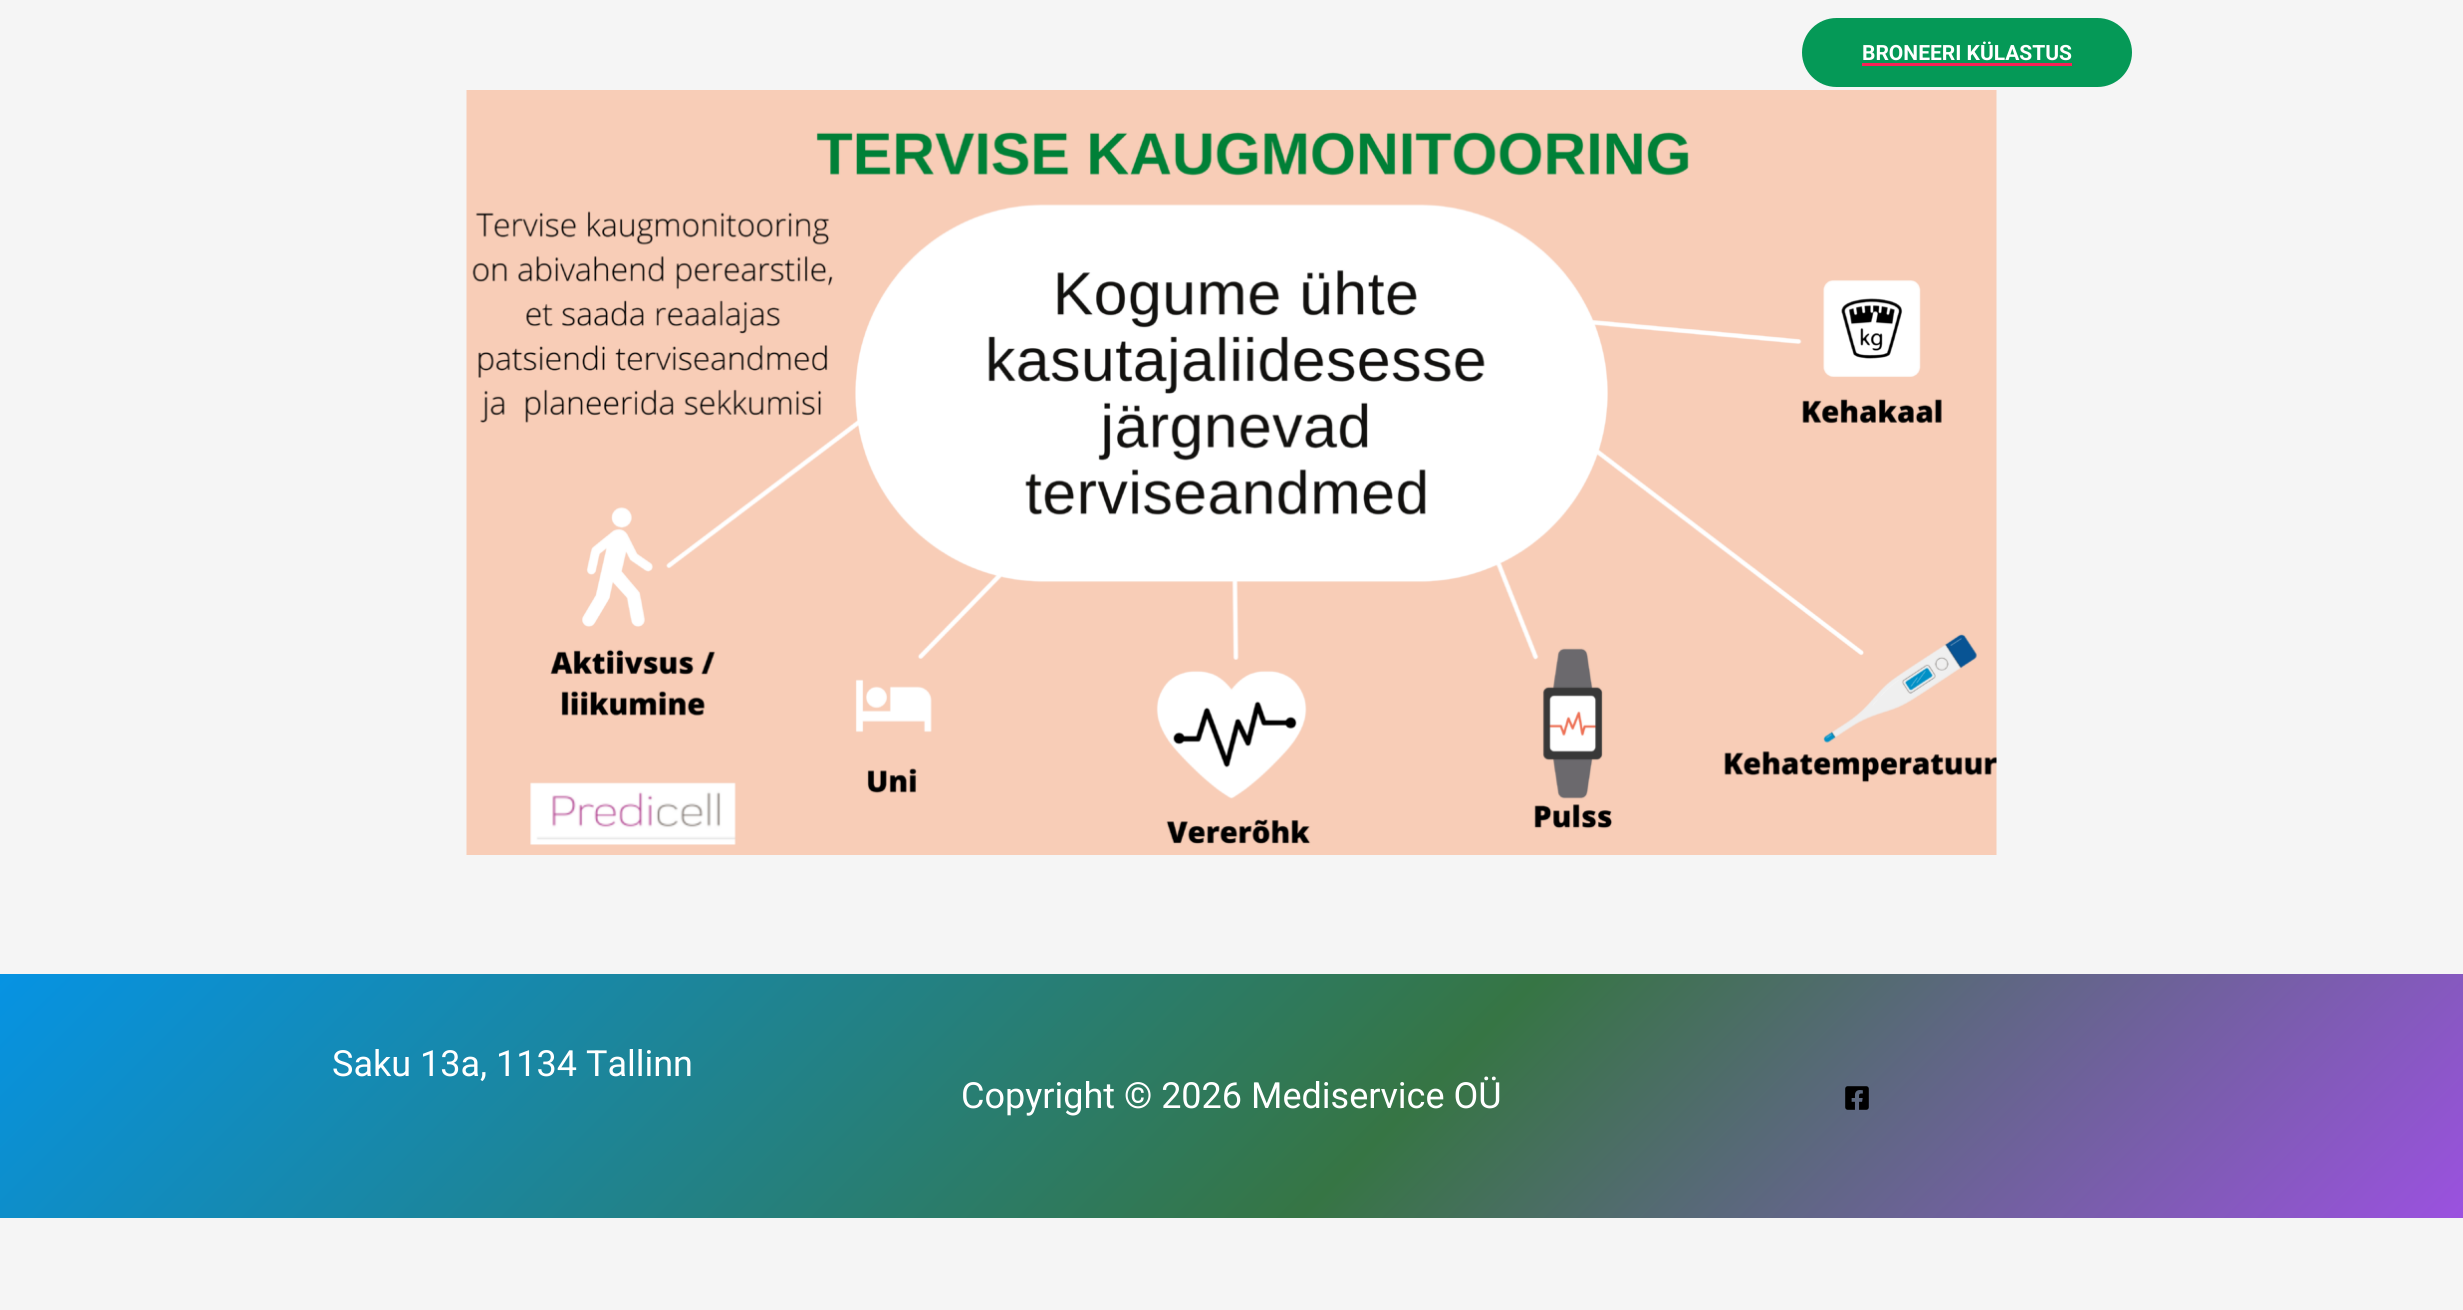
#include <cairo.h>
#include <math.h>
#include <stddef.h>


static void ink(cairo_t *ctx, unsigned color) {
    cairo_set_source_rgb(ctx, (color >> 16) / 255.0, (color >> 8 & 255) / 255.0, (color & 255) / 255.0);
}

static void round_path(cairo_t *ctx, double x, double y, double w, double h, double r) {
    cairo_new_sub_path(ctx);
    cairo_arc(ctx, x + w - r, y + h - r, r, 0, M_PI / 2);
    cairo_arc(ctx, x + r, y + h - r, r, M_PI / 2, M_PI);
    cairo_arc(ctx, x + r, y + r, r, M_PI, 1.5 * M_PI);
    cairo_arc(ctx, x + w - r, y + r, r, 1.5 * M_PI, 2 * M_PI);
    cairo_close_path(ctx);
}

static void paste(cairo_t *ctx, const char *path, double x, double y, double w, double h) {
    cairo_surface_t *image = cairo_image_surface_create_from_png(path);
    cairo_save(ctx);
    cairo_set_source_surface(ctx, image, x, y);
    cairo_rectangle(ctx, x, y, w, h);
    cairo_fill(ctx);
    cairo_restore(ctx);
    cairo_surface_destroy(image);
}

int main(void) {
    cairo_surface_t *surface = cairo_image_surface_create(CAIRO_FORMAT_RGB24, 2463, 1310);
    cairo_t *ctx = cairo_create(surface);
    cairo_font_options_t *options = cairo_font_options_create();
    cairo_font_options_set_hint_metrics(options, CAIRO_HINT_METRICS_OFF);
    cairo_font_options_set_hint_style(options, CAIRO_HINT_STYLE_NONE);
    cairo_set_font_options(ctx, options);
    cairo_set_miter_limit(ctx, 4);
    cairo_pattern_t *gradient;
    ink(ctx, 0xF5F5F5);
    cairo_paint(ctx);
    ink(ctx, 0x059957);
    round_path(ctx, 1802, 18, 330, 69, 34.5);
    cairo_fill(ctx);
    cairo_select_font_face(ctx, "Roboto", CAIRO_FONT_SLANT_NORMAL, CAIRO_FONT_WEIGHT_BOLD);
    cairo_set_font_size(ctx, 21);
    ink(ctx, 0xFFFFFF);
    cairo_move_to(ctx, 1862, 60);
    cairo_show_text(ctx, "BRONEERI KÜLASTUS");
    ink(ctx, 0xFB2056);
    cairo_rectangle(ctx, 1862, 63, 210, 3);
    cairo_fill(ctx);
    paste(ctx, "media/1.png", 466, 90, 1531, 765);
    gradient = cairo_pattern_create_linear(555, 419, 1908, 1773);
    cairo_pattern_add_color_stop_rgba(gradient, 0, 0.024, 0.576, 0.89, 1);
    cairo_pattern_add_color_stop_rgba(gradient, 0.57, 0.212, 0.459, 0.267, 1);
    cairo_pattern_add_color_stop_rgba(gradient, 1, 0.608, 0.318, 0.878, 1);
    cairo_set_source(ctx, gradient);
    cairo_pattern_destroy(gradient);
    cairo_rectangle(ctx, 0, 974, 2463, 244);
    cairo_fill(ctx);
    cairo_select_font_face(ctx, "Roboto", CAIRO_FONT_SLANT_NORMAL, CAIRO_FONT_WEIGHT_NORMAL);
    cairo_set_font_size(ctx, 36);
    ink(ctx, 0xFFFFFF);
    cairo_move_to(ctx, 332, 1076);
    cairo_show_text(ctx, "Saku 13a, 1134 Tallinn");
    cairo_move_to(ctx, 961, 1108);
    cairo_show_text(ctx, "Copyright © 2026 Mediservice OÜ");
    paste(ctx, "media/2.png", 1845, 1086, 24, 24);
    cairo_surface_write_to_png(surface, "image.png");
    cairo_font_options_destroy(options);
    cairo_destroy(ctx);
    cairo_surface_destroy(surface);
    return 0;
}
